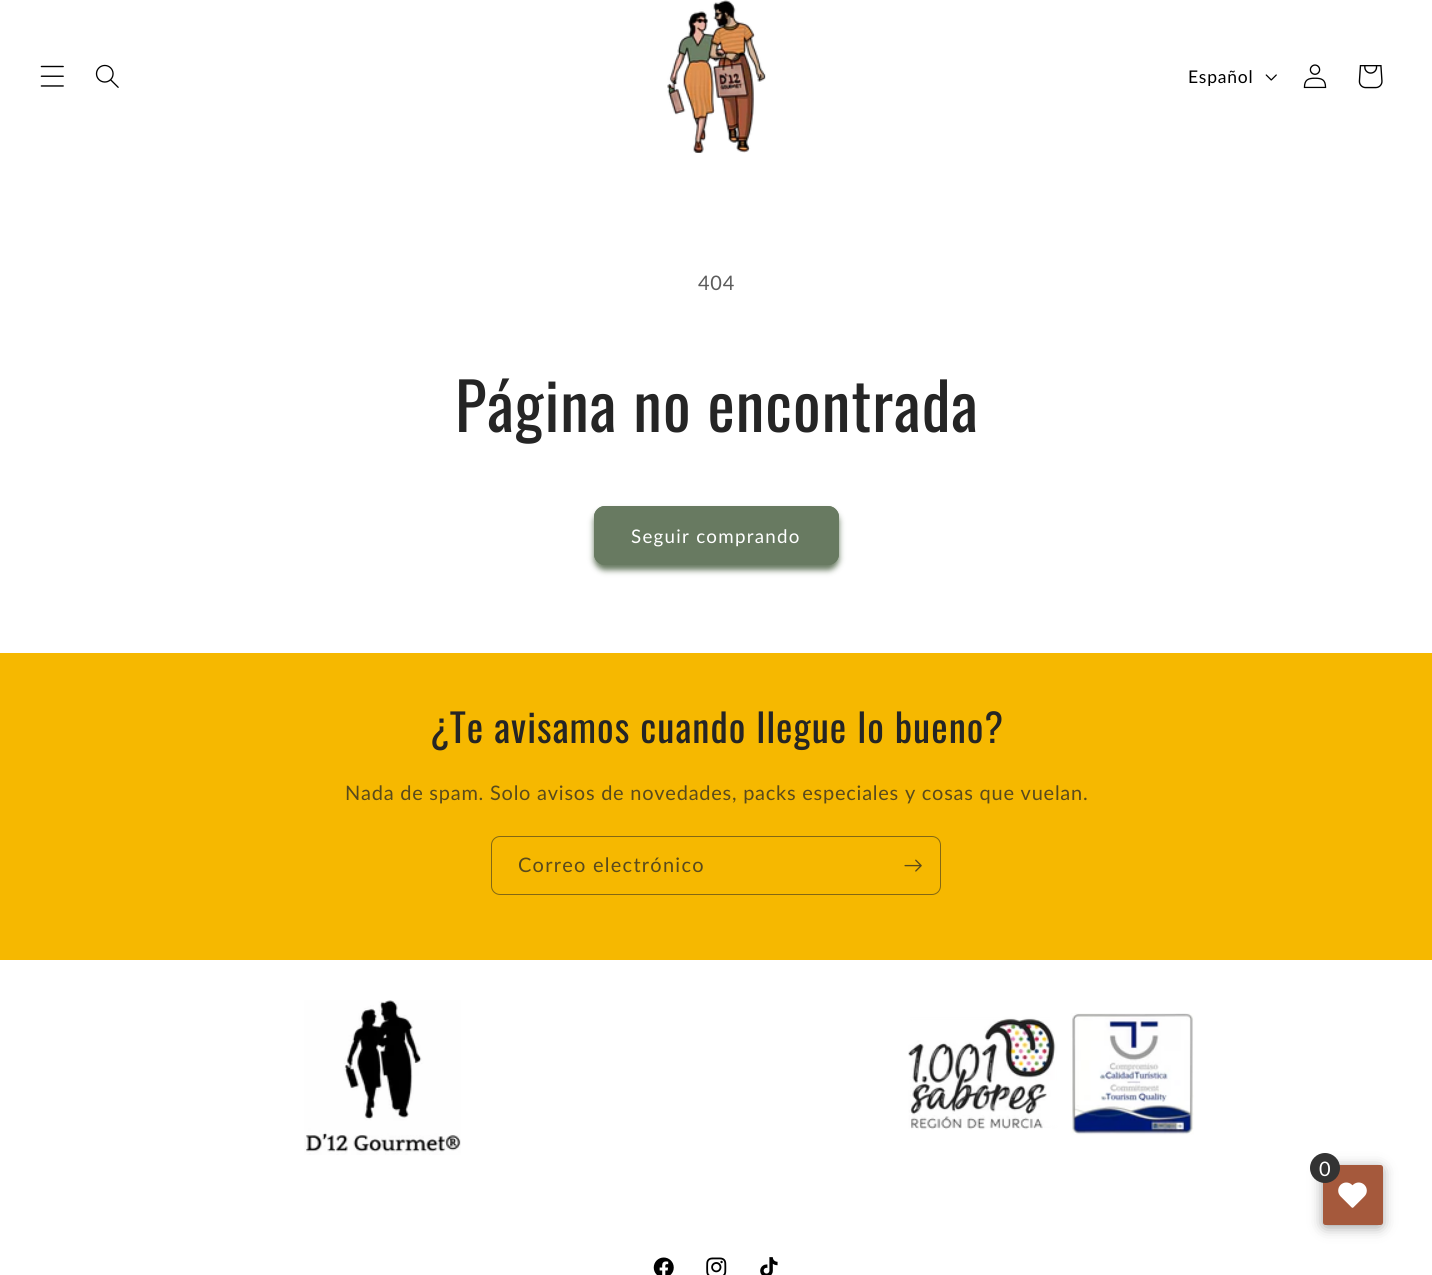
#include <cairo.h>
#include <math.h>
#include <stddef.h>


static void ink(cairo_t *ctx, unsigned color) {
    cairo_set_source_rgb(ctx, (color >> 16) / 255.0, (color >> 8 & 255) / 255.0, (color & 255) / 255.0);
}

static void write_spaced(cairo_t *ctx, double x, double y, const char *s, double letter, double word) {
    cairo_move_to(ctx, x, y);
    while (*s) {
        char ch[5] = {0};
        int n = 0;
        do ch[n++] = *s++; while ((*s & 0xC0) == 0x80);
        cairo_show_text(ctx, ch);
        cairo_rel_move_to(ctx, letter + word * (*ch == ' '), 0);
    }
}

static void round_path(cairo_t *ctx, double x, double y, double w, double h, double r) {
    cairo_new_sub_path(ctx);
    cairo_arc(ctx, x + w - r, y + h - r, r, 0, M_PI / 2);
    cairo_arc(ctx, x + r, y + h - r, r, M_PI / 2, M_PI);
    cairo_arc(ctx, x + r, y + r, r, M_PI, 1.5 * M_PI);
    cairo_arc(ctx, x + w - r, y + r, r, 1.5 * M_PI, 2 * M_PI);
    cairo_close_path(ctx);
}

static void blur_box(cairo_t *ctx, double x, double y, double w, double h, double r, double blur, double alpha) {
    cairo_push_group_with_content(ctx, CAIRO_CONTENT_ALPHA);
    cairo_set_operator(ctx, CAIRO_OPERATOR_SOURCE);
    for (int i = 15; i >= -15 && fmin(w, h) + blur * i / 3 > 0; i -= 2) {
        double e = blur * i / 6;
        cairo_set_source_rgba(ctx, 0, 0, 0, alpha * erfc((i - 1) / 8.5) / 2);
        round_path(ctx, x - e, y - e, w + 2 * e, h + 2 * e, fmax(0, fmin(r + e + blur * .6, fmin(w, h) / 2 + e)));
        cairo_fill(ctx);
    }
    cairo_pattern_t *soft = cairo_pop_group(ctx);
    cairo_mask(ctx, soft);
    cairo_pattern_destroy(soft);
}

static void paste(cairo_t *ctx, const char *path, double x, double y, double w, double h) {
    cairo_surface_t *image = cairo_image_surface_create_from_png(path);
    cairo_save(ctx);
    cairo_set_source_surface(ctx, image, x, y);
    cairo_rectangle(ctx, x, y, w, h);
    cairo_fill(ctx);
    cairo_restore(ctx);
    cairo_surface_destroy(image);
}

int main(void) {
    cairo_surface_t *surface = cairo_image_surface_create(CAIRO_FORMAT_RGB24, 1432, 1275);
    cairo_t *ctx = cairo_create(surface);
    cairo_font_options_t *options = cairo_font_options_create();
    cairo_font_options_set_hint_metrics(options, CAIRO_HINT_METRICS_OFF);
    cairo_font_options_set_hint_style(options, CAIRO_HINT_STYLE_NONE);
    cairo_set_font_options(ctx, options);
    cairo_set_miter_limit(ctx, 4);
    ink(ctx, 0xFFFFFF);
    cairo_paint(ctx);
    paste(ctx, "media/1.png", 40, 65, 24, 22);
    paste(ctx, "media/2.png", 95, 64, 24, 24);
    paste(ctx, "media/3.png", 667, 0, 99, 153);
    cairo_select_font_face(ctx, "Lato", CAIRO_FONT_SLANT_NORMAL, CAIRO_FONT_WEIGHT_NORMAL);
    cairo_set_font_size(ctx, 17.5);
    ink(ctx, 0x000000);
    write_spaced(ctx, 1188, 83, "Español", 0.75, 0);
    paste(ctx, "media/4.png", 1265, 74, 12, 7);
    paste(ctx, "media/5.png", 1303, 64, 24, 25);
    paste(ctx, "media/6.png", 1358, 65, 25, 24);
    cairo_set_font_size(ctx, 20);
    ink(ctx, 0x5C5C5C);
    write_spaced(ctx, 698, 290, "404", 0.75, 0);
    cairo_select_font_face(ctx, "Oswald", CAIRO_FONT_SLANT_NORMAL, CAIRO_FONT_WEIGHT_NORMAL);
    cairo_set_font_size(ctx, 65);
    ink(ctx, 0x252525);
    write_spaced(ctx, 455, 432, "Página no encontrada", 1, 0);
    ink(ctx, 0x687A61);
    blur_box(ctx, 594, 511, 245, 59, 11, 3, 1);
    ink(ctx, 0x687A61);
    round_path(ctx, 594, 506, 245, 59, 11);
    cairo_fill(ctx);
    round_path(ctx, 594.5, 506.5, 244, 58, 10.5);
    cairo_set_line_width(ctx, 1);
    cairo_stroke(ctx);
    cairo_select_font_face(ctx, "Lato", CAIRO_FONT_SLANT_NORMAL, CAIRO_FONT_WEIGHT_NORMAL);
    cairo_set_font_size(ctx, 18.75);
    ink(ctx, 0xFFFFFF);
    write_spaced(ctx, 631, 543, "Seguir comprando", 1.25, 0);
    ink(ctx, 0xF6B800);
    cairo_rectangle(ctx, 0, 653, 1432, 307);
    cairo_fill(ctx);
    cairo_select_font_face(ctx, "Oswald", CAIRO_FONT_SLANT_NORMAL, CAIRO_FONT_WEIGHT_NORMAL);
    cairo_set_font_size(ctx, 39);
    ink(ctx, 0x252525);
    write_spaced(ctx, 430, 743, "¿Te avisamos cuando llegue lo bueno?", 1, 0);
    cairo_select_font_face(ctx, "Lato", CAIRO_FONT_SLANT_NORMAL, CAIRO_FONT_WEIGHT_NORMAL);
    cairo_set_font_size(ctx, 20);
    ink(ctx, 0x594A1C);
    write_spaced(ctx, 345, 800, "Nada de spam. Solo avisos de novedades, packs especiales y cosas que vuelan.", 0.75, 0);
    round_path(ctx, 491.5, 836.5, 449, 58, 8.5);
    ink(ctx, 0x836714);
    cairo_stroke(ctx);
    ink(ctx, 0x594A1C);
    write_spaced(ctx, 518, 872, "Correo electrónico", 1.25, 0);
    paste(ctx, "media/7.png", 904, 859, 18, 13);
    paste(ctx, "media/8.png", 304, 1000, 157, 155);
    paste(ctx, "media/9.png", 908, 1013, 286, 122);
    paste(ctx, "media/10.png", 653, 1257, 21, 18);
    paste(ctx, "media/11.png", 706, 1257, 21, 18);
    paste(ctx, "media/12.png", 760, 1257, 18, 18);
    ink(ctx, 0x000000);
    blur_box(ctx, 1325, 1170, 55, 55, 0, 7.5, 0.5);
    ink(ctx, 0xA5593C);
    round_path(ctx, 1323, 1165, 60, 60, 2.5);
    cairo_fill(ctx);
    paste(ctx, "media/13.png", 1338, 1182, 29, 26);
    ink(ctx, 0x333333);
    cairo_arc(ctx, 1325, 1168, 15, 0, 2 * M_PI);
    cairo_fill(ctx);
    ink(ctx, 0xFFFFFF);
    write_spaced(ctx, 1319, 1176, "0", 0.75, 0);
    cairo_surface_write_to_png(surface, "image.png");
    cairo_font_options_destroy(options);
    cairo_destroy(ctx);
    cairo_surface_destroy(surface);
    return 0;
}
